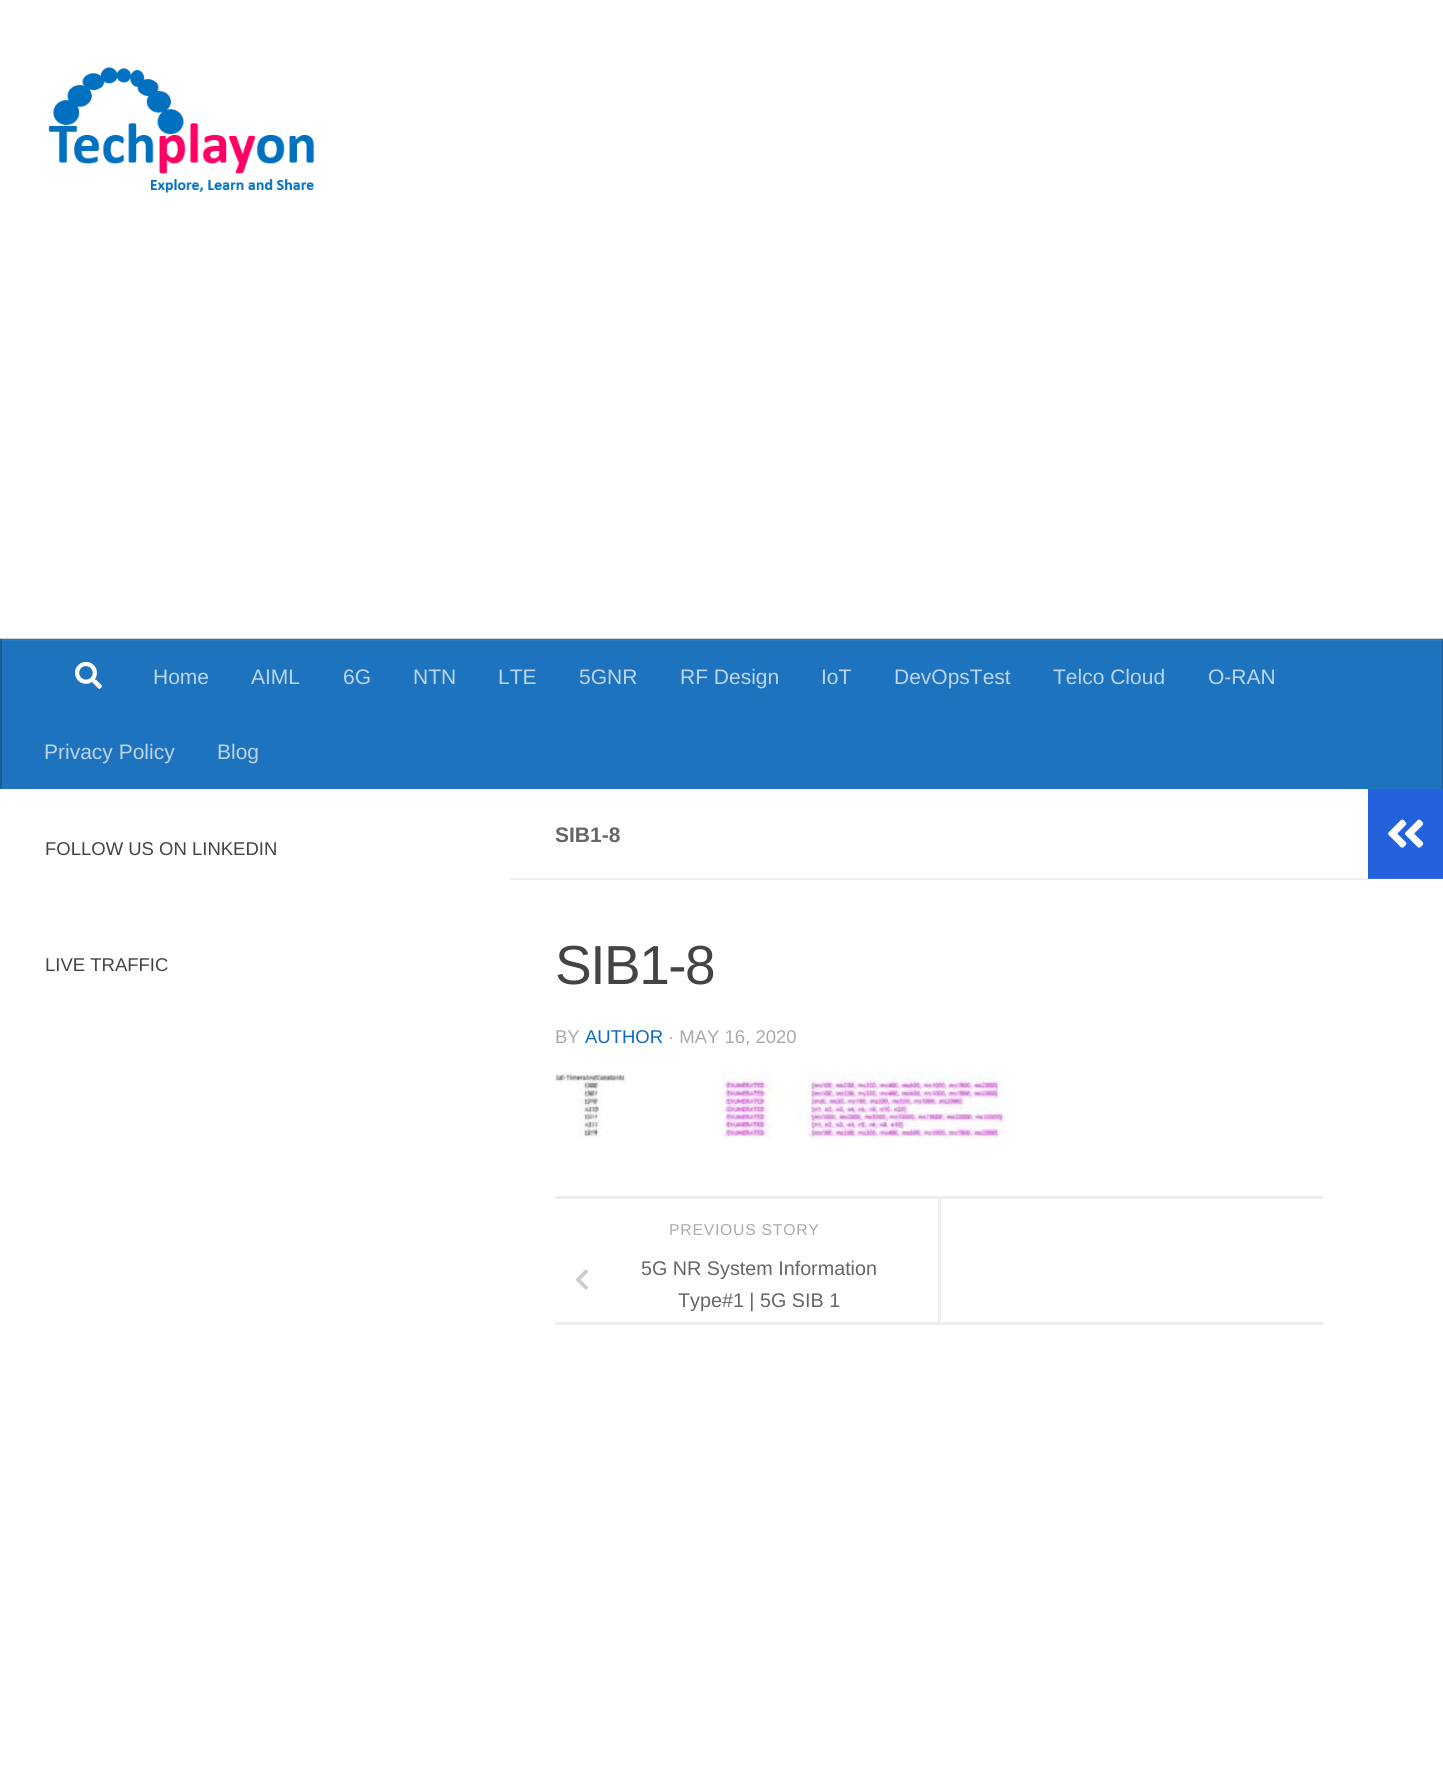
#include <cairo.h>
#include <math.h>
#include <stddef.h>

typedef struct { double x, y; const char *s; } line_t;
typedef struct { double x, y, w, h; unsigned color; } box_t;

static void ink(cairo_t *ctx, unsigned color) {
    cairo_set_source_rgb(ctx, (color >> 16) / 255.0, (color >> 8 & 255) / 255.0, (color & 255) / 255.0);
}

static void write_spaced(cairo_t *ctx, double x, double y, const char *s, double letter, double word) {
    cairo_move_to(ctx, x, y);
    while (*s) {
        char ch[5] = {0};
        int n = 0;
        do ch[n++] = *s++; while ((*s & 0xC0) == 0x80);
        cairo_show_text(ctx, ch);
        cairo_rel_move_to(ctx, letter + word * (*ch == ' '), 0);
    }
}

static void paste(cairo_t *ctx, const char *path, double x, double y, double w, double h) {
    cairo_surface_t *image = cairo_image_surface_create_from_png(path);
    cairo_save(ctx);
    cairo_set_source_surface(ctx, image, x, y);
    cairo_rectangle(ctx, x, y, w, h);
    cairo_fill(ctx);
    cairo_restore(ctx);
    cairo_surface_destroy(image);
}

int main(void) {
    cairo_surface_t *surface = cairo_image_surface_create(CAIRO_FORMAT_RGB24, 1443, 1771);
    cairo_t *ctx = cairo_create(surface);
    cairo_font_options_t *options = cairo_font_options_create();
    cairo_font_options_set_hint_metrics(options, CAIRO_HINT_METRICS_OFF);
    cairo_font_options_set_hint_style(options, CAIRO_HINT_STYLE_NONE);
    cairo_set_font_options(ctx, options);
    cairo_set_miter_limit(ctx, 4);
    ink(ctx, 0xFFFFFF);
    cairo_paint(ctx);
    paste(ctx, "media/1.png", 48, 67, 267, 126);
    {
        static const box_t items[] = {
            {0, 638, 1443, 1, 0xCCCCCC},
            {2, 641, 1440, 148, 0x1E73BE},
            {0, 639, 1443, 2, 0x297AC1},
            {1442, 639, 1, 150, 0x185C98},
            {1442, 639, 1, 2, 0x24649D},
            {0, 639, 2, 150, 0x185C98},
            {0, 639, 2, 2, 0x24649D},
        };
        for (size_t i = 0; i < sizeof items / sizeof *items; i++) {
            ink(ctx, items[i].color);
            cairo_rectangle(ctx, items[i].x, items[i].y, items[i].w, items[i].h);
            cairo_fill(ctx);
        }
    }
    paste(ctx, "media/2.png", 75, 661, 27, 28);
    cairo_select_font_face(ctx, "Liberation Sans", CAIRO_FONT_SLANT_NORMAL, CAIRO_FONT_WEIGHT_NORMAL);
    cairo_set_font_size(ctx, 21);
    ink(ctx, 0xBCD5EC);
    {
        static const line_t items[] = {
            {153, 684, "Home"},
            {251, 684, "AIML"},
            {343, 684, "6G"},
            {413, 684, "NTN"},
            {498, 684, "LTE"},
            {579, 684, "5GNR"},
            {680, 684, "RF Design"},
            {821, 684, "IoT"},
            {894, 684, "DevOpsTest"},
            {1053, 684, "Telco Cloud"},
            {1208, 684, "O-RAN"},
            {44, 759, "Privacy Policy"},
            {217, 759, "Blog"},
        };
        for (size_t i = 0; i < sizeof items / sizeof *items; i++) {
            cairo_move_to(ctx, items[i].x, items[i].y);
            cairo_show_text(ctx, items[i].s);
        }
    }
    cairo_set_font_size(ctx, 18.5);
    ink(ctx, 0x444444);
    cairo_move_to(ctx, 45, 855);
    cairo_show_text(ctx, "FOLLOW US ON LINKEDIN");
    cairo_move_to(ctx, 45, 971);
    cairo_show_text(ctx, "LIVE TRAFFIC");
    ink(ctx, 0xEEEEEE);
    cairo_rectangle(ctx, 510, 878, 858, 2);
    cairo_fill(ctx);
    cairo_select_font_face(ctx, "Liberation Sans", CAIRO_FONT_SLANT_NORMAL, CAIRO_FONT_WEIGHT_BOLD);
    cairo_set_font_size(ctx, 21);
    ink(ctx, 0x666666);
    cairo_move_to(ctx, 555, 842);
    cairo_show_text(ctx, "SIB1-8");
    cairo_select_font_face(ctx, "Liberation Sans", CAIRO_FONT_SLANT_NORMAL, CAIRO_FONT_WEIGHT_NORMAL);
    cairo_set_font_size(ctx, 55);
    ink(ctx, 0x444444);
    write_spaced(ctx, 555, 984, "SIB1-8", -1.5, 0);
    cairo_set_font_size(ctx, 18.5);
    ink(ctx, 0xAAAAAA);
    cairo_move_to(ctx, 555, 1043);
    cairo_show_text(ctx, "BY");
    ink(ctx, 0x0B6BBF);
    cairo_move_to(ctx, 585, 1043);
    cairo_show_text(ctx, "AUTHOR");
    ink(ctx, 0xAAAAAA);
    cairo_move_to(ctx, 668, 1043);
    cairo_show_text(ctx, "· MAY 16, 2020");
    paste(ctx, "media/3.png", 555, 1072, 450, 67);
    ink(ctx, 0xEEEEEE);
    cairo_rectangle(ctx, 555, 1196, 768, 3);
    cairo_fill(ctx);
    cairo_rectangle(ctx, 555, 1322, 768, 3);
    cairo_fill(ctx);
    cairo_new_path(ctx);
    cairo_move_to(ctx, 557, 1322);
    cairo_line_to(ctx, 941, 1322);
    cairo_line_to(ctx, 941, 1199);
    cairo_line_to(ctx, 939, 1199);
    cairo_line_to(ctx, 939, 1322);
    cairo_close_path(ctx);
    cairo_fill(ctx);
    cairo_rectangle(ctx, 938, 1199, 1, 123);
    cairo_fill(ctx);
    cairo_set_font_size(ctx, 15.75);
    ink(ctx, 0xAAAAAA);
    write_spaced(ctx, 669, 1235, "PREVIOUS STORY", 0.75, 0);
    paste(ctx, "media/4.png", 575, 1269, 13, 21);
    cairo_set_font_size(ctx, 19.75);
    ink(ctx, 0x666666);
    cairo_move_to(ctx, 641, 1275);
    cairo_show_text(ctx, "5G NR System Information");
    cairo_move_to(ctx, 678, 1307);
    cairo_show_text(ctx, "Type#1 | 5G SIB 1");
    ink(ctx, 0x2361DD);
    cairo_rectangle(ctx, 1368, 789, 75, 89);
    cairo_fill(ctx);
    ink(ctx, 0x3971E0);
    cairo_rectangle(ctx, 1368, 878, 75, 1);
    cairo_fill(ctx);
    paste(ctx, "media/5.png", 1388, 819, 36, 29);
    cairo_surface_write_to_png(surface, "image.png");
    cairo_font_options_destroy(options);
    cairo_destroy(ctx);
    cairo_surface_destroy(surface);
    return 0;
}
